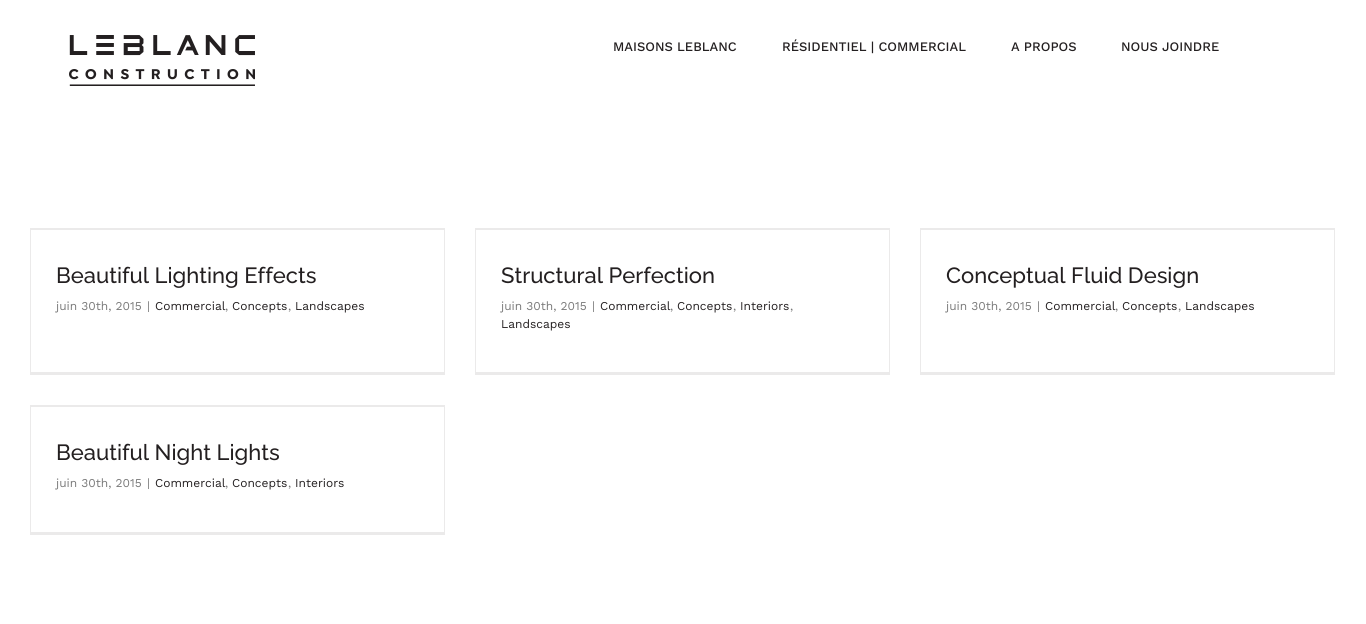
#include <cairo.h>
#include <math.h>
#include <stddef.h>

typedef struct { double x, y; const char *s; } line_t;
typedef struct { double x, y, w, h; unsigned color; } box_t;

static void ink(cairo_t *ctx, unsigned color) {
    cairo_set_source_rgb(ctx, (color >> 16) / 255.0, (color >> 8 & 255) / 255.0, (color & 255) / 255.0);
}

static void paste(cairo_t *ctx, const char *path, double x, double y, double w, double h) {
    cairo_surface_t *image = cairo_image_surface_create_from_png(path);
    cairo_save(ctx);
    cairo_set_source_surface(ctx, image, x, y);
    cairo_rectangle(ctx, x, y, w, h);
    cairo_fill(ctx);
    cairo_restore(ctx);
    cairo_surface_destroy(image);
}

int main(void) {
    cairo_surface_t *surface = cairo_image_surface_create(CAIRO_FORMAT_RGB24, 1366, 624);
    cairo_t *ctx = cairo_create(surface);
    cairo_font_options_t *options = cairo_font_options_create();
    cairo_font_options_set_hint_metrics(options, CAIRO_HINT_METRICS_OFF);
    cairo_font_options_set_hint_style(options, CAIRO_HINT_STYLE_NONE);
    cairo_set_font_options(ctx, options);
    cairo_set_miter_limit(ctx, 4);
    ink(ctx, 0xFFFFFF);
    cairo_paint(ctx);
    paste(ctx, "media/1.png", 69, 35, 186, 51);
    cairo_select_font_face(ctx, "Work Sans Medium", CAIRO_FONT_SLANT_NORMAL, CAIRO_FONT_WEIGHT_NORMAL);
    cairo_set_font_size(ctx, 13);
    ink(ctx, 0x231F20);
    {
        static const line_t items[] = {
            {613, 51, "MAISONS LEBLANC"},
            {782, 51, "RÉSIDENTIEL | COMMERCIAL"},
            {1011, 51, "A PROPOS"},
            {1121, 51, "NOUS JOINDRE"},
        };
        for (size_t i = 0; i < sizeof items / sizeof *items; i++) {
            cairo_move_to(ctx, items[i].x, items[i].y);
            cairo_show_text(ctx, items[i].s);
        }
    }
    {
        static const box_t items[] = {
            {30, 228, 415, 1, 0xEBEAEA},
            {444, 228, 1, 147, 0xEBEAEA},
            {30, 372, 415, 3, 0xEBEAEA},
            {30, 228, 1, 147, 0xEBEAEA},
            {31, 229, 413, 1, 0xEBEAEA},
        };
        for (size_t i = 0; i < sizeof items / sizeof *items; i++) {
            ink(ctx, items[i].color);
            cairo_rectangle(ctx, items[i].x, items[i].y, items[i].w, items[i].h);
            cairo_fill(ctx);
        }
    }
    cairo_select_font_face(ctx, "Raleway Medium", CAIRO_FONT_SLANT_NORMAL, CAIRO_FONT_WEIGHT_NORMAL);
    cairo_set_font_size(ctx, 22);
    ink(ctx, 0x231F20);
    cairo_move_to(ctx, 56, 283);
    cairo_show_text(ctx, "Beautiful Lighting Effects");
    cairo_select_font_face(ctx, "Work Sans", CAIRO_FONT_SLANT_NORMAL, CAIRO_FONT_WEIGHT_NORMAL);
    cairo_set_font_size(ctx, 12);
    ink(ctx, 0x7A7A7A);
    cairo_move_to(ctx, 56, 310);
    cairo_show_text(ctx, "juin 30th, 2015");
    cairo_move_to(ctx, 147, 310);
    cairo_show_text(ctx, "|");
    ink(ctx, 0x231F20);
    cairo_move_to(ctx, 155, 310);
    cairo_show_text(ctx, "Commercial");
    ink(ctx, 0x7A7A7A);
    cairo_move_to(ctx, 225, 310);
    cairo_show_text(ctx, ",");
    ink(ctx, 0x231F20);
    cairo_move_to(ctx, 232, 310);
    cairo_show_text(ctx, "Concepts");
    ink(ctx, 0x7A7A7A);
    cairo_move_to(ctx, 288, 310);
    cairo_show_text(ctx, ",");
    ink(ctx, 0x231F20);
    cairo_move_to(ctx, 295, 310);
    cairo_show_text(ctx, "Landscapes");
    {
        static const box_t items[] = {
            {475, 228, 415, 1, 0xEBEAEA},
            {889, 228, 1, 147, 0xEBEAEA},
            {475, 372, 415, 3, 0xEBEAEA},
            {475, 228, 1, 147, 0xEBEAEA},
            {476, 229, 413, 1, 0xEBEAEA},
        };
        for (size_t i = 0; i < sizeof items / sizeof *items; i++) {
            ink(ctx, items[i].color);
            cairo_rectangle(ctx, items[i].x, items[i].y, items[i].w, items[i].h);
            cairo_fill(ctx);
        }
    }
    cairo_select_font_face(ctx, "Raleway Medium", CAIRO_FONT_SLANT_NORMAL, CAIRO_FONT_WEIGHT_NORMAL);
    cairo_set_font_size(ctx, 22);
    ink(ctx, 0x231F20);
    cairo_move_to(ctx, 501, 283);
    cairo_show_text(ctx, "Structural Perfection");
    cairo_select_font_face(ctx, "Work Sans", CAIRO_FONT_SLANT_NORMAL, CAIRO_FONT_WEIGHT_NORMAL);
    cairo_set_font_size(ctx, 12);
    ink(ctx, 0x7A7A7A);
    cairo_move_to(ctx, 501, 310);
    cairo_show_text(ctx, "juin 30th, 2015");
    cairo_move_to(ctx, 592, 310);
    cairo_show_text(ctx, "|");
    ink(ctx, 0x231F20);
    cairo_move_to(ctx, 600, 310);
    cairo_show_text(ctx, "Commercial");
    ink(ctx, 0x7A7A7A);
    cairo_move_to(ctx, 670, 310);
    cairo_show_text(ctx, ",");
    ink(ctx, 0x231F20);
    cairo_move_to(ctx, 677, 310);
    cairo_show_text(ctx, "Concepts");
    ink(ctx, 0x7A7A7A);
    cairo_move_to(ctx, 733, 310);
    cairo_show_text(ctx, ",");
    ink(ctx, 0x231F20);
    cairo_move_to(ctx, 740, 310);
    cairo_show_text(ctx, "Interiors");
    ink(ctx, 0x7A7A7A);
    cairo_move_to(ctx, 790, 310);
    cairo_show_text(ctx, ",");
    ink(ctx, 0x231F20);
    cairo_move_to(ctx, 501, 328);
    cairo_show_text(ctx, "Landscapes");
    {
        static const box_t items[] = {
            {920, 228, 415, 1, 0xEBEAEA},
            {1334, 228, 1, 147, 0xEBEAEA},
            {920, 372, 415, 3, 0xEBEAEA},
            {920, 228, 1, 147, 0xEBEAEA},
            {921, 229, 413, 1, 0xEBEAEA},
        };
        for (size_t i = 0; i < sizeof items / sizeof *items; i++) {
            ink(ctx, items[i].color);
            cairo_rectangle(ctx, items[i].x, items[i].y, items[i].w, items[i].h);
            cairo_fill(ctx);
        }
    }
    cairo_select_font_face(ctx, "Raleway Medium", CAIRO_FONT_SLANT_NORMAL, CAIRO_FONT_WEIGHT_NORMAL);
    cairo_set_font_size(ctx, 22);
    ink(ctx, 0x231F20);
    cairo_move_to(ctx, 946, 283);
    cairo_show_text(ctx, "Conceptual Fluid Design");
    cairo_select_font_face(ctx, "Work Sans", CAIRO_FONT_SLANT_NORMAL, CAIRO_FONT_WEIGHT_NORMAL);
    cairo_set_font_size(ctx, 12);
    ink(ctx, 0x7A7A7A);
    cairo_move_to(ctx, 946, 310);
    cairo_show_text(ctx, "juin 30th, 2015");
    cairo_move_to(ctx, 1037, 310);
    cairo_show_text(ctx, "|");
    ink(ctx, 0x231F20);
    cairo_move_to(ctx, 1045, 310);
    cairo_show_text(ctx, "Commercial");
    ink(ctx, 0x7A7A7A);
    cairo_move_to(ctx, 1115, 310);
    cairo_show_text(ctx, ",");
    ink(ctx, 0x231F20);
    cairo_move_to(ctx, 1122, 310);
    cairo_show_text(ctx, "Concepts");
    ink(ctx, 0x7A7A7A);
    cairo_move_to(ctx, 1178, 310);
    cairo_show_text(ctx, ",");
    ink(ctx, 0x231F20);
    cairo_move_to(ctx, 1185, 310);
    cairo_show_text(ctx, "Landscapes");
    {
        static const box_t items[] = {
            {30, 405, 415, 1, 0xEBEAEA},
            {444, 405, 1, 130, 0xEBEAEA},
            {30, 532, 415, 3, 0xEBEAEA},
            {30, 405, 1, 130, 0xEBEAEA},
            {31, 406, 413, 1, 0xEBEAEA},
        };
        for (size_t i = 0; i < sizeof items / sizeof *items; i++) {
            ink(ctx, items[i].color);
            cairo_rectangle(ctx, items[i].x, items[i].y, items[i].w, items[i].h);
            cairo_fill(ctx);
        }
    }
    cairo_select_font_face(ctx, "Raleway Medium", CAIRO_FONT_SLANT_NORMAL, CAIRO_FONT_WEIGHT_NORMAL);
    cairo_set_font_size(ctx, 22);
    ink(ctx, 0x231F20);
    cairo_move_to(ctx, 56, 460);
    cairo_show_text(ctx, "Beautiful Night Lights");
    cairo_select_font_face(ctx, "Work Sans", CAIRO_FONT_SLANT_NORMAL, CAIRO_FONT_WEIGHT_NORMAL);
    cairo_set_font_size(ctx, 12);
    ink(ctx, 0x7A7A7A);
    cairo_move_to(ctx, 56, 487);
    cairo_show_text(ctx, "juin 30th, 2015");
    cairo_move_to(ctx, 147, 487);
    cairo_show_text(ctx, "|");
    ink(ctx, 0x231F20);
    cairo_move_to(ctx, 155, 487);
    cairo_show_text(ctx, "Commercial");
    ink(ctx, 0x7A7A7A);
    cairo_move_to(ctx, 225, 487);
    cairo_show_text(ctx, ",");
    ink(ctx, 0x231F20);
    cairo_move_to(ctx, 232, 487);
    cairo_show_text(ctx, "Concepts");
    ink(ctx, 0x7A7A7A);
    cairo_move_to(ctx, 288, 487);
    cairo_show_text(ctx, ",");
    ink(ctx, 0x231F20);
    cairo_move_to(ctx, 295, 487);
    cairo_show_text(ctx, "Interiors");
    cairo_surface_write_to_png(surface, "image.png");
    cairo_font_options_destroy(options);
    cairo_destroy(ctx);
    cairo_surface_destroy(surface);
    return 0;
}
